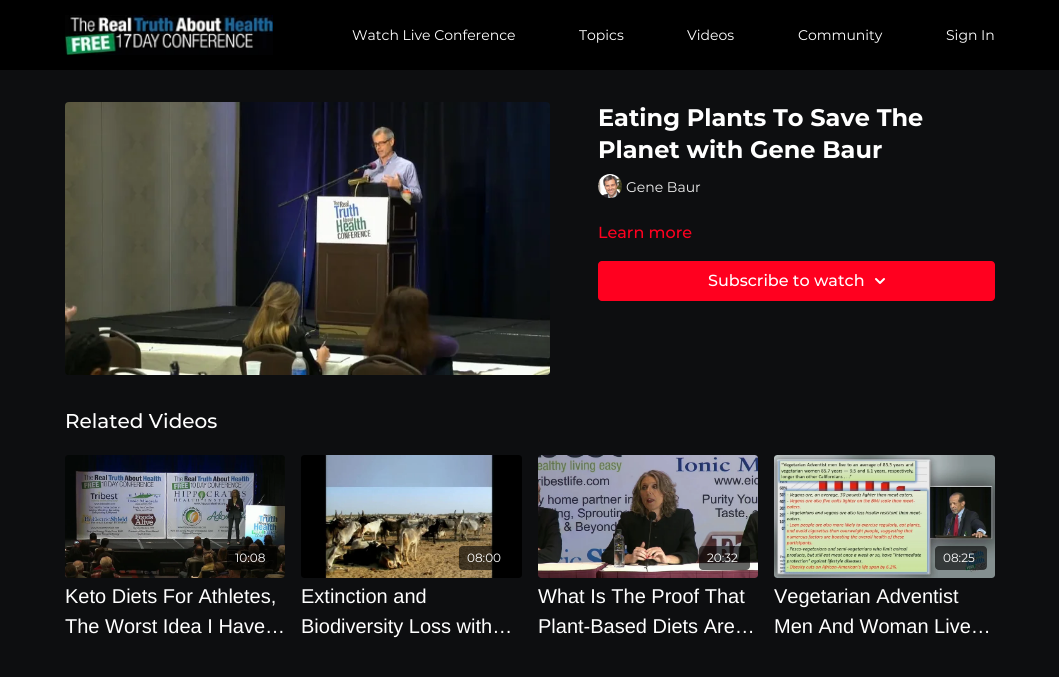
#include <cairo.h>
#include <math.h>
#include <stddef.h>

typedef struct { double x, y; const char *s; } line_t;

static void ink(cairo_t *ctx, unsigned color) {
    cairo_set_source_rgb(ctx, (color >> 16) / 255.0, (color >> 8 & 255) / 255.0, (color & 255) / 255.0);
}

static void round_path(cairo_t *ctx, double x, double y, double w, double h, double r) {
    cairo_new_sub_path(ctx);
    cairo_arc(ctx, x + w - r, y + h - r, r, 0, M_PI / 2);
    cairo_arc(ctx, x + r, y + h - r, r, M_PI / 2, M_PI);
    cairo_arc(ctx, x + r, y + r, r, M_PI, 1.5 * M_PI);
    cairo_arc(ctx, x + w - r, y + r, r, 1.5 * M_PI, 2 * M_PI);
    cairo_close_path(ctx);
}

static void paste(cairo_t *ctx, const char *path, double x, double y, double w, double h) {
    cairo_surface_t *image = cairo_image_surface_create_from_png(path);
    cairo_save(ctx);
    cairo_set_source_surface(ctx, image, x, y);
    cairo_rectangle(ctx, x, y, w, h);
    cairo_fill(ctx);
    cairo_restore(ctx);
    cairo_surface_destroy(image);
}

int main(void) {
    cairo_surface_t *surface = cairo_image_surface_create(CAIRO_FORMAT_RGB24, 1059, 677);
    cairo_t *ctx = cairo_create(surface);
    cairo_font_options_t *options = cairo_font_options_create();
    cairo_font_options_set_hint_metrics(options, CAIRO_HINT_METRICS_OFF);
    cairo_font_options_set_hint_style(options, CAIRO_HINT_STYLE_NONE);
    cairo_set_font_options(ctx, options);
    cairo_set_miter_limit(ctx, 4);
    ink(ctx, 0x0D0E10);
    cairo_paint(ctx);
    ink(ctx, 0x000000);
    cairo_rectangle(ctx, 0, 0, 1059, 70);
    cairo_fill(ctx);
    paste(ctx, "media/1.png", 65, 15, 208, 40);
    cairo_select_font_face(ctx, "Montserrat", CAIRO_FONT_SLANT_NORMAL, CAIRO_FONT_WEIGHT_NORMAL);
    cairo_set_font_size(ctx, 14);
    ink(ctx, 0xFFFFFF);
    {
        static const line_t items[] = {
            {352, 40, "Watch Live Conference"},
            {579, 40, "Topics"},
            {687, 40, "Videos"},
            {798, 40, "Community"},
            {946, 40, "Sign In"},
        };
        for (size_t i = 0; i < sizeof items / sizeof *items; i++) {
            cairo_move_to(ctx, items[i].x, items[i].y);
            cairo_show_text(ctx, items[i].s);
        }
    }
    paste(ctx, "media/2.png", 65, 102, 485, 273);
    cairo_select_font_face(ctx, "Montserrat", CAIRO_FONT_SLANT_NORMAL, CAIRO_FONT_WEIGHT_BOLD);
    cairo_set_font_size(ctx, 24);
    cairo_move_to(ctx, 598, 126);
    cairo_show_text(ctx, "Eating Plants To Save The");
    cairo_move_to(ctx, 598, 158);
    cairo_show_text(ctx, "Planet with Gene Baur");
    paste(ctx, "media/3.png", 598, 174, 24, 24);
    cairo_select_font_face(ctx, "Montserrat", CAIRO_FONT_SLANT_NORMAL, CAIRO_FONT_WEIGHT_NORMAL);
    cairo_set_font_size(ctx, 14);
    ink(ctx, 0xEEEEEE);
    cairo_move_to(ctx, 626, 192);
    cairo_show_text(ctx, "Gene Baur");
    cairo_select_font_face(ctx, "Montserrat Medium", CAIRO_FONT_SLANT_NORMAL, CAIRO_FONT_WEIGHT_NORMAL);
    cairo_set_font_size(ctx, 16);
    ink(ctx, 0xFF001F);
    cairo_move_to(ctx, 598, 238);
    cairo_show_text(ctx, "Learn more");
    round_path(ctx, 598, 261, 397, 40, 4);
    cairo_fill(ctx);
    ink(ctx, 0xFFFFFF);
    cairo_move_to(ctx, 708, 286);
    cairo_show_text(ctx, "Subscribe to watch");
    paste(ctx, "media/4.png", 875, 278, 10, 6);
    cairo_set_font_size(ctx, 20);
    cairo_move_to(ctx, 65, 428);
    cairo_show_text(ctx, "Related Videos");
    paste(ctx, "media/5.png", 65, 455, 220, 123);
    cairo_set_source_rgba(ctx, 0, 0, 0, 0.6);
    round_path(ctx, 227, 546, 50, 24, 4);
    cairo_fill(ctx);
    cairo_select_font_face(ctx, "Montserrat", CAIRO_FONT_SLANT_NORMAL, CAIRO_FONT_WEIGHT_NORMAL);
    cairo_set_font_size(ctx, 12);
    ink(ctx, 0xFFFFFF);
    cairo_move_to(ctx, 235, 562);
    cairo_show_text(ctx, "10:08");
    cairo_select_font_face(ctx, "Liberation Sans", CAIRO_FONT_SLANT_NORMAL, CAIRO_FONT_WEIGHT_NORMAL);
    cairo_set_font_size(ctx, 20);
    cairo_move_to(ctx, 65, 603);
    cairo_show_text(ctx, "Keto Diets For Athletes,");
    cairo_move_to(ctx, 65, 633);
    cairo_show_text(ctx, "The Worst Idea I Have…");
    paste(ctx, "media/6.png", 301, 455, 221, 123);
    cairo_set_source_rgba(ctx, 0, 0, 0, 0.6);
    round_path(ctx, 459, 546, 55, 24, 4);
    cairo_fill(ctx);
    cairo_select_font_face(ctx, "Montserrat", CAIRO_FONT_SLANT_NORMAL, CAIRO_FONT_WEIGHT_NORMAL);
    cairo_set_font_size(ctx, 12);
    ink(ctx, 0xFFFFFF);
    cairo_move_to(ctx, 467, 562);
    cairo_show_text(ctx, "08:00");
    cairo_select_font_face(ctx, "Liberation Sans", CAIRO_FONT_SLANT_NORMAL, CAIRO_FONT_WEIGHT_NORMAL);
    cairo_set_font_size(ctx, 20);
    cairo_move_to(ctx, 301, 603);
    cairo_show_text(ctx, "Extinction and");
    cairo_move_to(ctx, 301, 633);
    cairo_show_text(ctx, "Biodiversity Loss with…");
    paste(ctx, "media/7.png", 538, 455, 220, 123);
    cairo_set_source_rgba(ctx, 0, 0, 0, 0.6);
    round_path(ctx, 699, 546, 51, 24, 4);
    cairo_fill(ctx);
    cairo_select_font_face(ctx, "Montserrat", CAIRO_FONT_SLANT_NORMAL, CAIRO_FONT_WEIGHT_NORMAL);
    cairo_set_font_size(ctx, 12);
    ink(ctx, 0xFFFFFF);
    cairo_move_to(ctx, 707, 562);
    cairo_show_text(ctx, "20:32");
    cairo_select_font_face(ctx, "Liberation Sans", CAIRO_FONT_SLANT_NORMAL, CAIRO_FONT_WEIGHT_NORMAL);
    cairo_set_font_size(ctx, 20);
    cairo_move_to(ctx, 538, 603);
    cairo_show_text(ctx, "What Is The Proof That");
    cairo_move_to(ctx, 538, 633);
    cairo_show_text(ctx, "Plant-Based Diets Are…");
    paste(ctx, "media/8.png", 774, 455, 221, 123);
    cairo_set_source_rgba(ctx, 0, 0, 0, 0.6);
    round_path(ctx, 935, 546, 52, 24, 4);
    cairo_fill(ctx);
    cairo_select_font_face(ctx, "Montserrat", CAIRO_FONT_SLANT_NORMAL, CAIRO_FONT_WEIGHT_NORMAL);
    cairo_set_font_size(ctx, 12);
    ink(ctx, 0xFFFFFF);
    cairo_move_to(ctx, 943, 562);
    cairo_show_text(ctx, "08:25");
    cairo_select_font_face(ctx, "Liberation Sans", CAIRO_FONT_SLANT_NORMAL, CAIRO_FONT_WEIGHT_NORMAL);
    cairo_set_font_size(ctx, 20);
    cairo_move_to(ctx, 774, 603);
    cairo_show_text(ctx, "Vegetarian Adventist");
    cairo_move_to(ctx, 774, 633);
    cairo_show_text(ctx, "Men And Woman Live…");
    cairo_surface_write_to_png(surface, "image.png");
    cairo_font_options_destroy(options);
    cairo_destroy(ctx);
    cairo_surface_destroy(surface);
    return 0;
}
